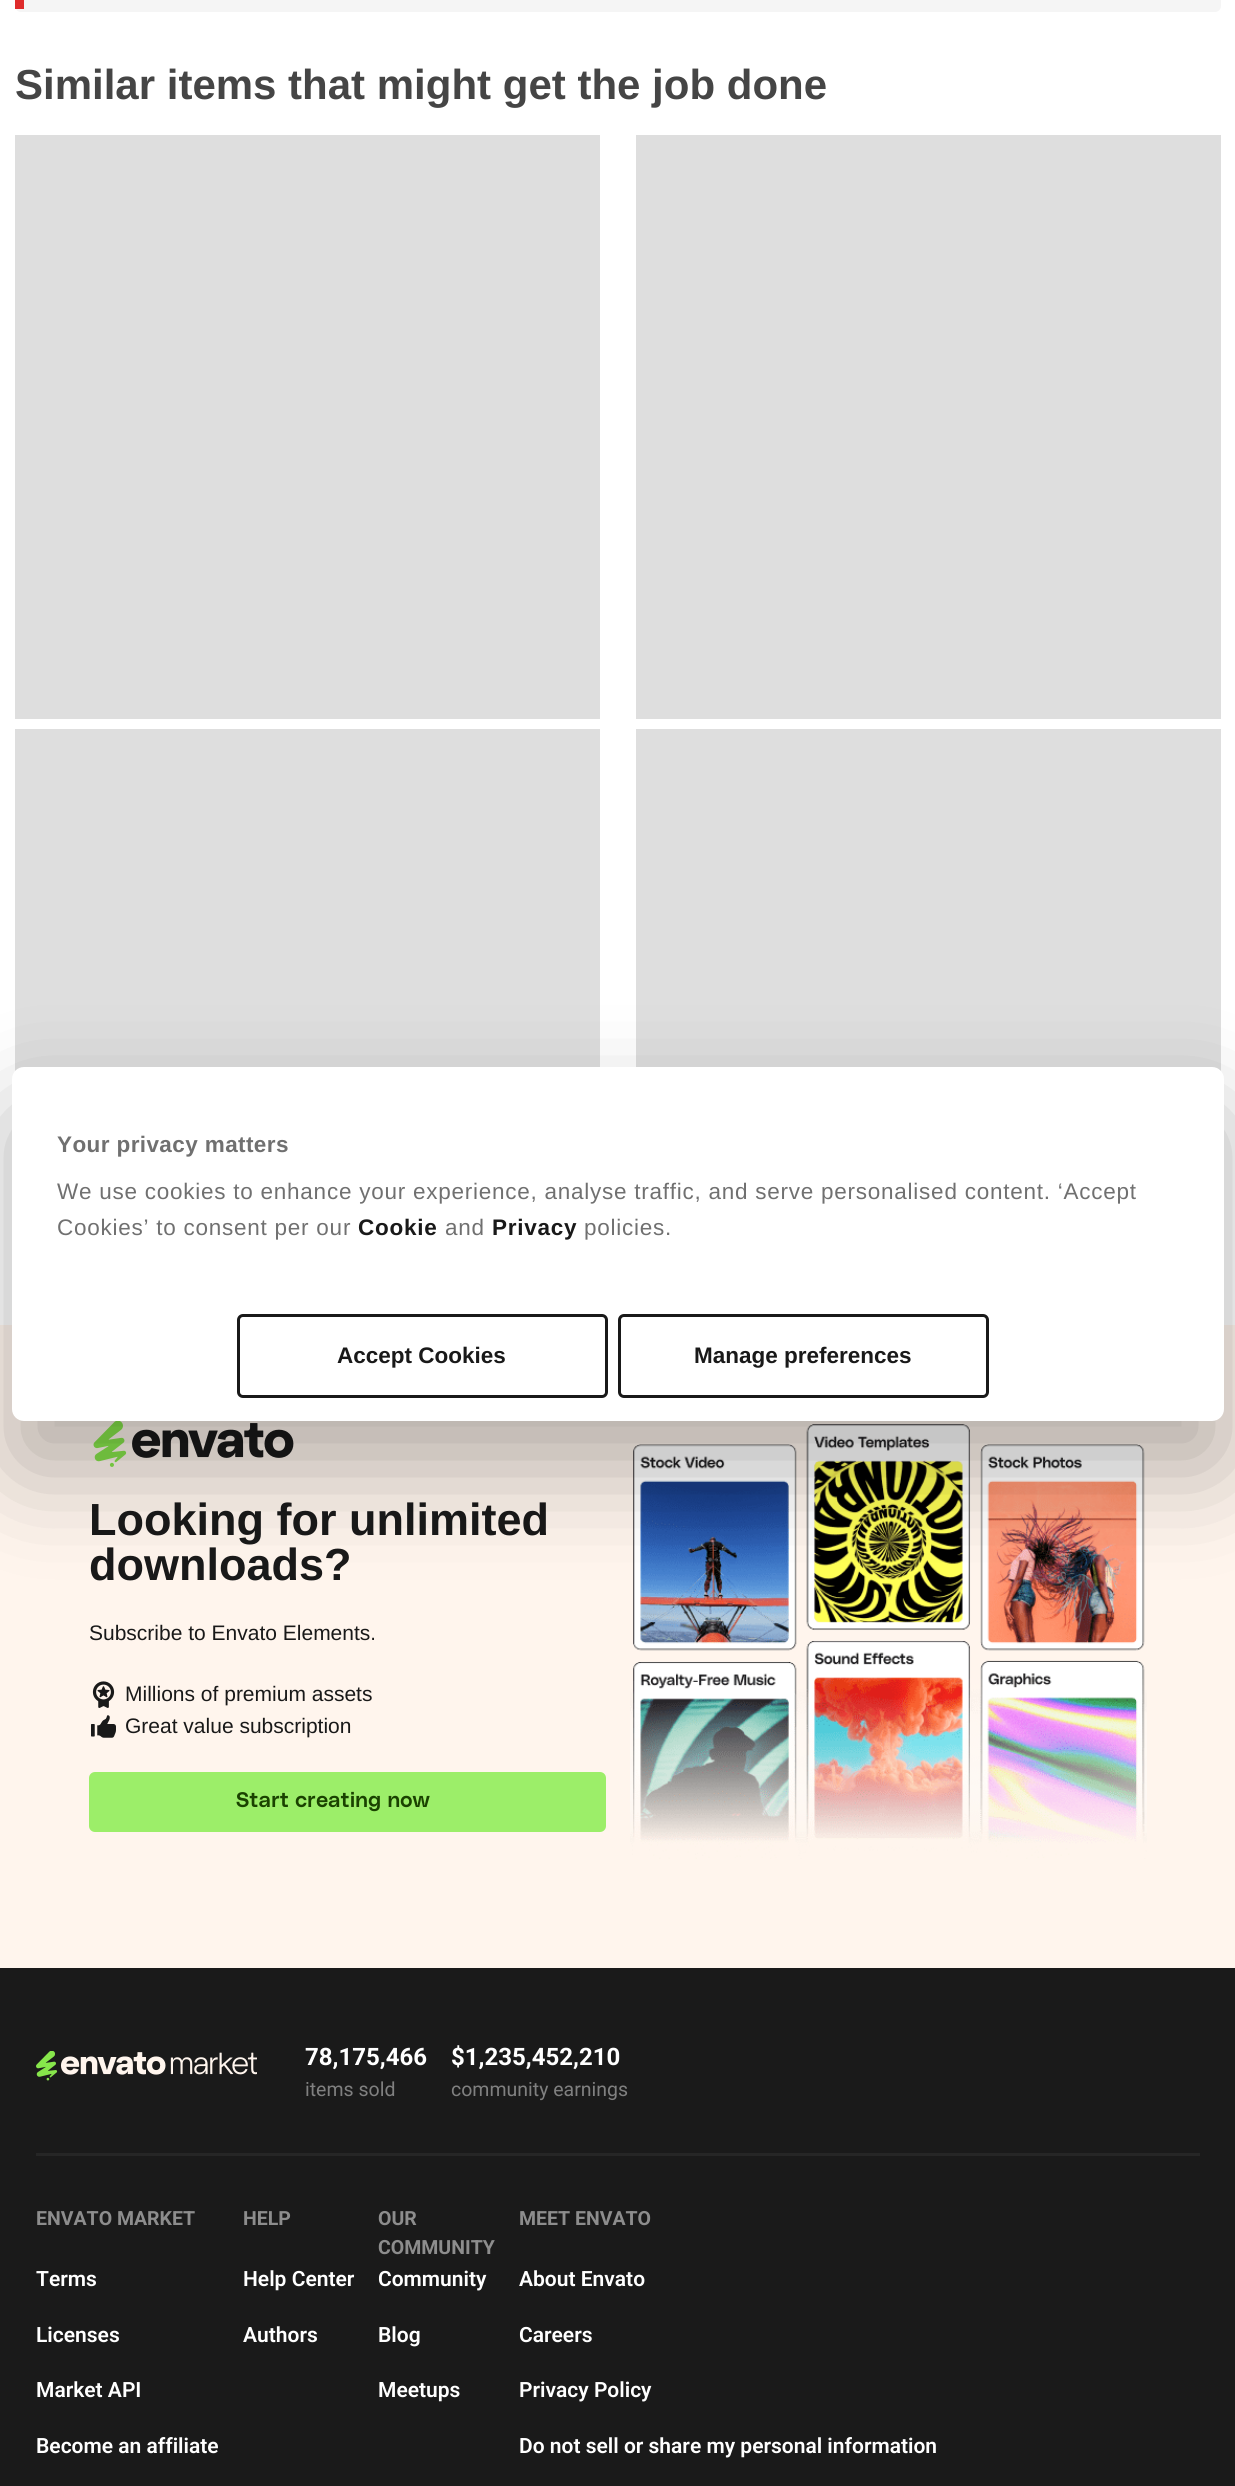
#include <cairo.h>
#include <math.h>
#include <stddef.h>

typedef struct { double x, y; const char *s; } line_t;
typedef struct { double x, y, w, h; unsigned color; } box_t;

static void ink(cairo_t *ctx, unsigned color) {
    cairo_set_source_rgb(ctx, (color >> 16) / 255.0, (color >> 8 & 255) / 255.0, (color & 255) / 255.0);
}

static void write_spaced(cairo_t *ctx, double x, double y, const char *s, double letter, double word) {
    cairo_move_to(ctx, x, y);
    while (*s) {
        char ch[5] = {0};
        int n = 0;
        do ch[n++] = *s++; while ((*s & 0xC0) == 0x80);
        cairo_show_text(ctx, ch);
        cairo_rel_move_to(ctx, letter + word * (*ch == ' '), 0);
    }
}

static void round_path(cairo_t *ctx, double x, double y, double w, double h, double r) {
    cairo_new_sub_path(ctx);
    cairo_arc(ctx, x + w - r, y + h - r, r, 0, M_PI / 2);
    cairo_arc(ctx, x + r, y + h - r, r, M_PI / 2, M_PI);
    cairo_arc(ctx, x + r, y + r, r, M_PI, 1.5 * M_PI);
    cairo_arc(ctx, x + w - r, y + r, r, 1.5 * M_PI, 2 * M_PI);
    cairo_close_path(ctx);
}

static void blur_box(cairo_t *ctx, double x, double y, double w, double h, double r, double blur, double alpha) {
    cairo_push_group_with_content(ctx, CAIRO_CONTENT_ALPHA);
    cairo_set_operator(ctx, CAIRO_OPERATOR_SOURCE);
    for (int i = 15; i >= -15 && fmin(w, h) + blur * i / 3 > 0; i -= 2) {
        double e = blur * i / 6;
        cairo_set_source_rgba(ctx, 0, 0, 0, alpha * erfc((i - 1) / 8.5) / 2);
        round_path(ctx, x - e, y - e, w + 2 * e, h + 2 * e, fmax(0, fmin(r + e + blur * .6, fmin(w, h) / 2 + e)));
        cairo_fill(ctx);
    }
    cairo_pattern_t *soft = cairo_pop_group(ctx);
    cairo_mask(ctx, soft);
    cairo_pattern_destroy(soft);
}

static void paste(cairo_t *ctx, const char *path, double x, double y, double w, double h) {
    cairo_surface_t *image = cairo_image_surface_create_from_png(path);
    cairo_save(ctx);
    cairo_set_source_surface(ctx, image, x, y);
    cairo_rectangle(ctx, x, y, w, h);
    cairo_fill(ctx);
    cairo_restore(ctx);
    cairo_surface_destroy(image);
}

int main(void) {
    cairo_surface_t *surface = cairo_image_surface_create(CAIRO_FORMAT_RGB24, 1235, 2486);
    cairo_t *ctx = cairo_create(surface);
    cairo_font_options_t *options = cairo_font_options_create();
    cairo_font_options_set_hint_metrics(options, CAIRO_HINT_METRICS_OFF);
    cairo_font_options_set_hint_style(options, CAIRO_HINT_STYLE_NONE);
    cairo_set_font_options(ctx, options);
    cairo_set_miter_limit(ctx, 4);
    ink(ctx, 0xFFFFFF);
    cairo_paint(ctx);
    ink(ctx, 0xF5F5F5);
    round_path(ctx, 15, -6, 1206, 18, 6);
    cairo_fill(ctx);
    ink(ctx, 0xDF2C2C);
    cairo_rectangle(ctx, 15, 0, 9, 9);
    cairo_fill(ctx);
    cairo_select_font_face(ctx, "Liberation Sans", CAIRO_FONT_SLANT_NORMAL, CAIRO_FONT_WEIGHT_BOLD);
    cairo_set_font_size(ctx, 42);
    ink(ctx, 0x454545);
    cairo_move_to(ctx, 15, 99);
    cairo_show_text(ctx, "Similar items that might get the job done");
    {
        static const box_t items[] = {
            {15, 135, 585, 584, 0xDEDEDE},
            {636, 135, 585, 584, 0xDEDEDE},
            {15, 729, 585, 343, 0xDEDEDE},
            {636, 729, 585, 343, 0xDEDEDE},
            {0, 1325, 1235, 643, 0xFFF5ED},
        };
        for (size_t i = 0; i < sizeof items / sizeof *items; i++) {
            ink(ctx, items[i].color);
            cairo_rectangle(ctx, items[i].x, items[i].y, items[i].w, items[i].h);
            cairo_fill(ctx);
        }
    }
    paste(ctx, "media/1.png", 93, 1421, 201, 46);
    cairo_set_font_size(ctx, 45);
    ink(ctx, 0x191919);
    cairo_move_to(ctx, 89, 1535);
    cairo_show_text(ctx, "Looking for unlimited");
    cairo_move_to(ctx, 89, 1580);
    cairo_show_text(ctx, "downloads?");
    cairo_select_font_face(ctx, "Liberation Sans", CAIRO_FONT_SLANT_NORMAL, CAIRO_FONT_WEIGHT_NORMAL);
    cairo_set_font_size(ctx, 21);
    cairo_move_to(ctx, 89, 1640);
    cairo_show_text(ctx, "Subscribe to Envato Elements.");
    paste(ctx, "media/2.png", 92, 1681, 23, 27);
    cairo_move_to(ctx, 125, 1701);
    cairo_show_text(ctx, "Millions of premium assets");
    paste(ctx, "media/3.png", 91, 1715, 25, 23);
    cairo_move_to(ctx, 125, 1733);
    cairo_show_text(ctx, "Great value subscription");
    ink(ctx, 0x9CEE69);
    round_path(ctx, 89, 1772, 517, 60, 6);
    cairo_fill(ctx);
    cairo_select_font_face(ctx, "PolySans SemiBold", CAIRO_FONT_SLANT_NORMAL, CAIRO_FONT_WEIGHT_NORMAL);
    ink(ctx, 0x1A4200);
    write_spaced(ctx, 236, 1807, "Start creating now", 0.4, 0);
    paste(ctx, "media/4.png", 630, 1424, 517, 435);
    ink(ctx, 0x1A1A1A);
    cairo_rectangle(ctx, 0, 1968, 1235, 518);
    cairo_fill(ctx);
    paste(ctx, "media/5.png", 36, 2051, 221, 30);
    cairo_select_font_face(ctx, "Roboto", CAIRO_FONT_SLANT_NORMAL, CAIRO_FONT_WEIGHT_BOLD);
    cairo_set_font_size(ctx, 24);
    ink(ctx, 0xFFFFFF);
    cairo_move_to(ctx, 305, 2065);
    cairo_show_text(ctx, "78,175,466");
    cairo_select_font_face(ctx, "Roboto", CAIRO_FONT_SLANT_NORMAL, CAIRO_FONT_WEIGHT_NORMAL);
    cairo_set_font_size(ctx, 19.5);
    ink(ctx, 0x808080);
    cairo_move_to(ctx, 305, 2096);
    cairo_show_text(ctx, "items sold");
    cairo_select_font_face(ctx, "Roboto", CAIRO_FONT_SLANT_NORMAL, CAIRO_FONT_WEIGHT_BOLD);
    cairo_set_font_size(ctx, 24);
    ink(ctx, 0xFFFFFF);
    cairo_move_to(ctx, 451, 2065);
    cairo_show_text(ctx, "$1,235,452,210");
    cairo_select_font_face(ctx, "Roboto", CAIRO_FONT_SLANT_NORMAL, CAIRO_FONT_WEIGHT_NORMAL);
    cairo_set_font_size(ctx, 19.5);
    ink(ctx, 0x808080);
    cairo_move_to(ctx, 451, 2096);
    cairo_show_text(ctx, "community earnings");
    ink(ctx, 0x262626);
    cairo_rectangle(ctx, 36, 2153, 1164, 3);
    cairo_fill(ctx);
    cairo_select_font_face(ctx, "Roboto", CAIRO_FONT_SLANT_NORMAL, CAIRO_FONT_WEIGHT_BOLD);
    ink(ctx, 0x8D8D8D);
    cairo_move_to(ctx, 36, 2225);
    cairo_show_text(ctx, "ENVATO MARKET");
    cairo_select_font_face(ctx, "Roboto SemiBold", CAIRO_FONT_SLANT_NORMAL, CAIRO_FONT_WEIGHT_NORMAL);
    cairo_set_font_size(ctx, 21);
    ink(ctx, 0xFFFFFF);
    {
        static const line_t items[] = {
            {36, 2286, "Terms"},
            {36, 2342, "Licenses"},
            {36, 2397, "Market API"},
            {36, 2453, "Become an affiliate"},
        };
        for (size_t i = 0; i < sizeof items / sizeof *items; i++) {
            cairo_move_to(ctx, items[i].x, items[i].y);
            cairo_show_text(ctx, items[i].s);
        }
    }
    cairo_select_font_face(ctx, "Roboto", CAIRO_FONT_SLANT_NORMAL, CAIRO_FONT_WEIGHT_BOLD);
    cairo_set_font_size(ctx, 19.5);
    ink(ctx, 0x8D8D8D);
    cairo_move_to(ctx, 243, 2225);
    cairo_show_text(ctx, "HELP");
    cairo_select_font_face(ctx, "Roboto SemiBold", CAIRO_FONT_SLANT_NORMAL, CAIRO_FONT_WEIGHT_NORMAL);
    cairo_set_font_size(ctx, 21);
    ink(ctx, 0xFFFFFF);
    cairo_move_to(ctx, 243, 2286);
    cairo_show_text(ctx, "Help Center");
    cairo_move_to(ctx, 243, 2342);
    cairo_show_text(ctx, "Authors");
    cairo_select_font_face(ctx, "Roboto", CAIRO_FONT_SLANT_NORMAL, CAIRO_FONT_WEIGHT_BOLD);
    cairo_set_font_size(ctx, 19.5);
    ink(ctx, 0x8D8D8D);
    cairo_move_to(ctx, 378, 2225);
    cairo_show_text(ctx, "OUR");
    cairo_move_to(ctx, 378, 2254);
    cairo_show_text(ctx, "COMMUNITY");
    cairo_select_font_face(ctx, "Roboto SemiBold", CAIRO_FONT_SLANT_NORMAL, CAIRO_FONT_WEIGHT_NORMAL);
    cairo_set_font_size(ctx, 21);
    ink(ctx, 0xFFFFFF);
    {
        static const line_t items[] = {
            {378, 2286, "Community"},
            {378, 2342, "Blog"},
            {378, 2397, "Meetups"},
        };
        for (size_t i = 0; i < sizeof items / sizeof *items; i++) {
            cairo_move_to(ctx, items[i].x, items[i].y);
            cairo_show_text(ctx, items[i].s);
        }
    }
    cairo_select_font_face(ctx, "Roboto", CAIRO_FONT_SLANT_NORMAL, CAIRO_FONT_WEIGHT_BOLD);
    cairo_set_font_size(ctx, 19.5);
    ink(ctx, 0x8D8D8D);
    cairo_move_to(ctx, 519, 2225);
    cairo_show_text(ctx, "MEET ENVATO");
    cairo_select_font_face(ctx, "Roboto SemiBold", CAIRO_FONT_SLANT_NORMAL, CAIRO_FONT_WEIGHT_NORMAL);
    cairo_set_font_size(ctx, 21);
    ink(ctx, 0xFFFFFF);
    {
        static const line_t items[] = {
            {519, 2286, "About Envato"},
            {519, 2342, "Careers"},
            {519, 2397, "Privacy Policy"},
            {519, 2453, "Do not sell or share my personal information"},
        };
        for (size_t i = 0; i < sizeof items / sizeof *items; i++) {
            cairo_move_to(ctx, items[i].x, items[i].y);
            cairo_show_text(ctx, items[i].s);
        }
    }
    ink(ctx, 0x000000);
    blur_box(ctx, 12, 1115, 1212, 354, 12, 51, 0.3);
    ink(ctx, 0xFFFFFF);
    round_path(ctx, 12, 1067, 1212, 354, 12);
    cairo_fill(ctx);
    cairo_select_font_face(ctx, "Liberation Sans", CAIRO_FONT_SLANT_NORMAL, CAIRO_FONT_WEIGHT_BOLD);
    cairo_set_font_size(ctx, 22.5);
    ink(ctx, 0x707070);
    write_spaced(ctx, 57, 1152, "Your privacy matters", 0.4, 0);
    cairo_select_font_face(ctx, "Liberation Sans", CAIRO_FONT_SLANT_NORMAL, CAIRO_FONT_WEIGHT_NORMAL);
    write_spaced(ctx, 57, 1199, "We use cookies to enhance your experience, analyse traffic, and serve personalised content. ‘Accept", 0.75, 0);
    write_spaced(ctx, 57, 1235, "Cookies’ to consent per our", 0.75, 0);
    cairo_select_font_face(ctx, "Liberation Sans", CAIRO_FONT_SLANT_NORMAL, CAIRO_FONT_WEIGHT_BOLD);
    ink(ctx, 0x191919);
    write_spaced(ctx, 358, 1235, "Cookie", 0.75, 0);
    cairo_select_font_face(ctx, "Liberation Sans", CAIRO_FONT_SLANT_NORMAL, CAIRO_FONT_WEIGHT_NORMAL);
    ink(ctx, 0x707070);
    write_spaced(ctx, 445, 1235, "and", 0.75, 0);
    cairo_select_font_face(ctx, "Liberation Sans", CAIRO_FONT_SLANT_NORMAL, CAIRO_FONT_WEIGHT_BOLD);
    ink(ctx, 0x191919);
    write_spaced(ctx, 492, 1235, "Privacy", 0.75, 0);
    cairo_select_font_face(ctx, "Liberation Sans", CAIRO_FONT_SLANT_NORMAL, CAIRO_FONT_WEIGHT_NORMAL);
    ink(ctx, 0x707070);
    write_spaced(ctx, 584, 1235, "policies.", 0.75, 0);
    round_path(ctx, 238.5, 1315.5, 368, 81, 4.5);
    ink(ctx, 0x191919);
    cairo_set_line_width(ctx, 3);
    cairo_stroke(ctx);
    cairo_select_font_face(ctx, "Liberation Sans", CAIRO_FONT_SLANT_NORMAL, CAIRO_FONT_WEIGHT_BOLD);
    cairo_move_to(ctx, 337, 1363);
    cairo_show_text(ctx, "Accept Cookies");
    round_path(ctx, 619.5, 1315.5, 368, 81, 4.5);
    cairo_stroke(ctx);
    cairo_move_to(ctx, 694, 1363);
    cairo_show_text(ctx, "Manage preferences");
    cairo_surface_write_to_png(surface, "image.png");
    cairo_font_options_destroy(options);
    cairo_destroy(ctx);
    cairo_surface_destroy(surface);
    return 0;
}
